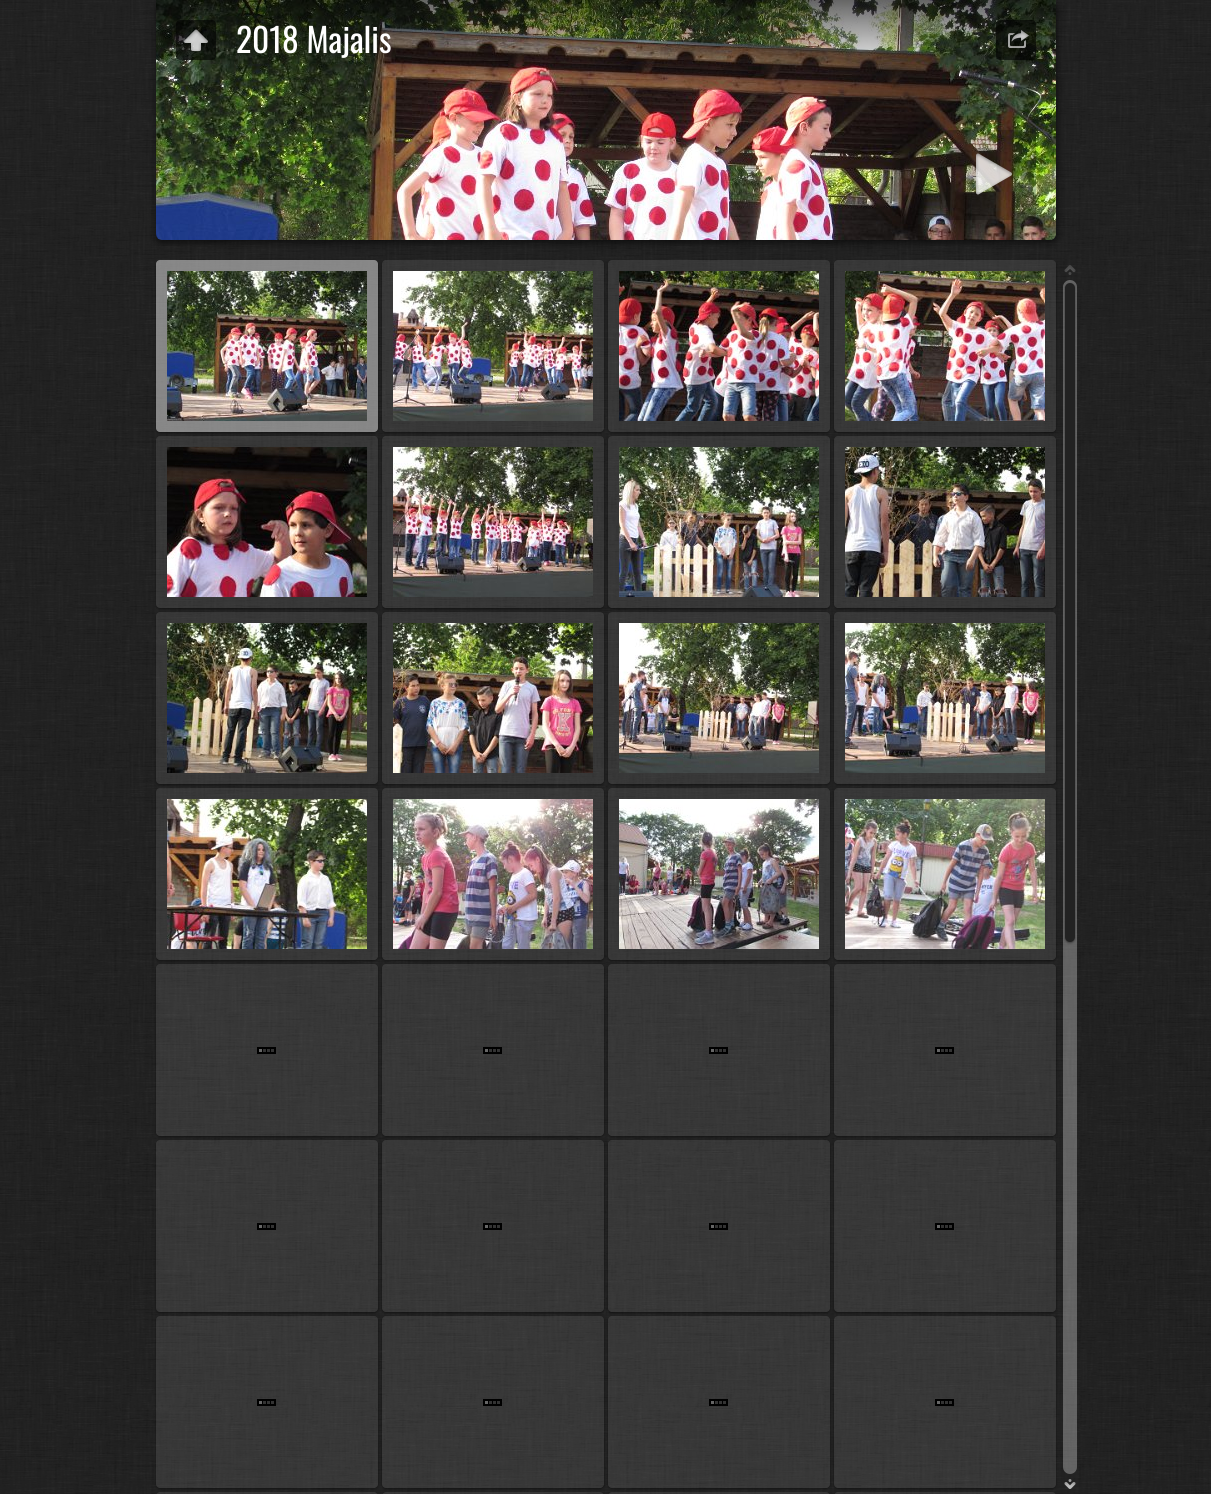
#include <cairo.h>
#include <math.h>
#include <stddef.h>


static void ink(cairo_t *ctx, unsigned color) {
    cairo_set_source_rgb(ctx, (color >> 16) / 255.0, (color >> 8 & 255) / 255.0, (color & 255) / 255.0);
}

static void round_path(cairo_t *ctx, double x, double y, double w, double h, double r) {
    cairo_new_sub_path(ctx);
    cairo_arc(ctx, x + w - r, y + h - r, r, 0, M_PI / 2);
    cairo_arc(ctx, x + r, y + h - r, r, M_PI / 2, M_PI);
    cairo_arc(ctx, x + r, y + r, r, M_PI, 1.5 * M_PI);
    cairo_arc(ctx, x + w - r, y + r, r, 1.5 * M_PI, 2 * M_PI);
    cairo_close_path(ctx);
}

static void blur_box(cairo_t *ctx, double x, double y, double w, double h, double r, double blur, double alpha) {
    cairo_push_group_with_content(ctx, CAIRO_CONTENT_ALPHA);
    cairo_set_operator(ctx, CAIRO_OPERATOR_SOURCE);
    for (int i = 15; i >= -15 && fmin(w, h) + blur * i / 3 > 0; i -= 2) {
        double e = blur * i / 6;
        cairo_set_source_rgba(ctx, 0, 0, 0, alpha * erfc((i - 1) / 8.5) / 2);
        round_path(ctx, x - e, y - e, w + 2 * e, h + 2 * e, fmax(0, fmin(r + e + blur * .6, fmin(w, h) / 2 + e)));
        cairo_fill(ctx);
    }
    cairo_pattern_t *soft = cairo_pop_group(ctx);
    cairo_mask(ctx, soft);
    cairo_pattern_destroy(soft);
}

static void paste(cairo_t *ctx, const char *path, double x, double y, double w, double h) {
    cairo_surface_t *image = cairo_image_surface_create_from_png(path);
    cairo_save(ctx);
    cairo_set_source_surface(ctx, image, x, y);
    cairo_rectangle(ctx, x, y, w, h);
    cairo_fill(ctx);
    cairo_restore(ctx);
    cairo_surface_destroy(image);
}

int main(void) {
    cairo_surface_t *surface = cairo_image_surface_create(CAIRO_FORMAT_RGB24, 1211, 1494);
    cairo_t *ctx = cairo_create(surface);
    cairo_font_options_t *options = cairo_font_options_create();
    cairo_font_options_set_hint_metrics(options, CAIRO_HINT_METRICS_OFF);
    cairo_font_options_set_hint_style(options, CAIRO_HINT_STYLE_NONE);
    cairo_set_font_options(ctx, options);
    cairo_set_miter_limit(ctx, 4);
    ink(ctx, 0x222222);
    cairo_paint(ctx);
    paste(ctx, "media/1.png", 0, 0, 1211, 1494);
    ink(ctx, 0x000000);
    blur_box(ctx, 157, 3, 900, 240, 6, 4, 0.6);
    paste(ctx, "media/2.png", 156, 0, 900, 240);
    cairo_set_source_rgba(ctx, 0, 0, 0, 0.6);
    round_path(ctx, 176, 20, 40, 40, 4);
    cairo_fill(ctx);
    paste(ctx, "media/3.png", 184, 29, 24, 22);
    cairo_select_font_face(ctx, "Oswald", CAIRO_FONT_SLANT_NORMAL, CAIRO_FONT_WEIGHT_NORMAL);
    cairo_set_font_size(ctx, 33.5);
    ink(ctx, 0xFFFFFF);
    cairo_move_to(ctx, 236, 53);
    cairo_show_text(ctx, "2018 Majalis");
    cairo_set_source_rgba(ctx, 0, 0, 0, 0.6);
    round_path(ctx, 996, 20, 40, 40, 4);
    cairo_fill(ctx);
    paste(ctx, "media/4.png", 1008, 30, 21, 18);
    cairo_set_source_rgba(ctx, 0, 0, 0, 0.2);
    round_path(ctx, 946, 130, 90, 90, 4);
    cairo_fill(ctx);
    paste(ctx, "media/5.png", 976, 153, 36, 42);
    cairo_save(ctx);
    cairo_set_fill_rule(ctx, CAIRO_FILL_RULE_EVEN_ODD);
    cairo_new_path(ctx);
    cairo_move_to(ctx, 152, 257);
    cairo_line_to(ctx, 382, 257);
    cairo_line_to(ctx, 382, 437);
    cairo_line_to(ctx, 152, 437);
    cairo_close_path(ctx);
    cairo_move_to(ctx, 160, 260);
    cairo_line_to(ctx, 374, 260);
    cairo_curve_to(ctx, 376, 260, 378, 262, 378, 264);
    cairo_line_to(ctx, 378, 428);
    cairo_curve_to(ctx, 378, 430, 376, 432, 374, 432);
    cairo_line_to(ctx, 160, 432);
    cairo_curve_to(ctx, 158, 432, 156, 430, 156, 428);
    cairo_line_to(ctx, 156, 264);
    cairo_curve_to(ctx, 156, 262, 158, 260, 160, 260);
    cairo_close_path(ctx);
    cairo_clip(ctx);
    ink(ctx, 0x000000);
    blur_box(ctx, 156, 261, 222, 172, 4, 1, 0.4);
    cairo_restore(ctx);
    cairo_set_source_rgba(ctx, 1, 1, 1, 0.1);
    round_path(ctx, 156, 260, 222, 172, 4);
    cairo_fill(ctx);
    cairo_set_source_rgba(ctx, 1, 1, 1, 0.4);
    round_path(ctx, 156, 260, 222, 172, 4);
    cairo_fill(ctx);
    paste(ctx, "media/6.png", 167, 271, 200, 150);
    cairo_save(ctx);
    cairo_set_fill_rule(ctx, CAIRO_FILL_RULE_EVEN_ODD);
    cairo_new_path(ctx);
    cairo_move_to(ctx, 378, 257);
    cairo_line_to(ctx, 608, 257);
    cairo_line_to(ctx, 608, 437);
    cairo_line_to(ctx, 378, 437);
    cairo_close_path(ctx);
    cairo_move_to(ctx, 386, 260);
    cairo_line_to(ctx, 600, 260);
    cairo_curve_to(ctx, 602, 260, 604, 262, 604, 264);
    cairo_line_to(ctx, 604, 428);
    cairo_curve_to(ctx, 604, 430, 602, 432, 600, 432);
    cairo_line_to(ctx, 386, 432);
    cairo_curve_to(ctx, 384, 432, 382, 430, 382, 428);
    cairo_line_to(ctx, 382, 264);
    cairo_curve_to(ctx, 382, 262, 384, 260, 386, 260);
    cairo_close_path(ctx);
    cairo_clip(ctx);
    ink(ctx, 0x000000);
    blur_box(ctx, 382, 261, 222, 172, 4, 1, 0.4);
    cairo_restore(ctx);
    cairo_set_source_rgba(ctx, 1, 1, 1, 0.1);
    round_path(ctx, 382, 260, 222, 172, 4);
    cairo_fill(ctx);
    paste(ctx, "media/7.png", 393, 271, 200, 150);
    cairo_save(ctx);
    cairo_set_fill_rule(ctx, CAIRO_FILL_RULE_EVEN_ODD);
    cairo_new_path(ctx);
    cairo_move_to(ctx, 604, 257);
    cairo_line_to(ctx, 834, 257);
    cairo_line_to(ctx, 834, 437);
    cairo_line_to(ctx, 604, 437);
    cairo_close_path(ctx);
    cairo_move_to(ctx, 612, 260);
    cairo_line_to(ctx, 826, 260);
    cairo_curve_to(ctx, 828, 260, 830, 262, 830, 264);
    cairo_line_to(ctx, 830, 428);
    cairo_curve_to(ctx, 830, 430, 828, 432, 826, 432);
    cairo_line_to(ctx, 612, 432);
    cairo_curve_to(ctx, 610, 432, 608, 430, 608, 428);
    cairo_line_to(ctx, 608, 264);
    cairo_curve_to(ctx, 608, 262, 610, 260, 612, 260);
    cairo_close_path(ctx);
    cairo_clip(ctx);
    ink(ctx, 0x000000);
    blur_box(ctx, 608, 261, 222, 172, 4, 1, 0.4);
    cairo_restore(ctx);
    round_path(ctx, 608, 260, 222, 172, 4);
    cairo_fill(ctx);
    paste(ctx, "media/8.png", 619, 271, 200, 150);
    cairo_save(ctx);
    cairo_set_fill_rule(ctx, CAIRO_FILL_RULE_EVEN_ODD);
    cairo_new_path(ctx);
    cairo_move_to(ctx, 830, 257);
    cairo_line_to(ctx, 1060, 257);
    cairo_line_to(ctx, 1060, 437);
    cairo_line_to(ctx, 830, 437);
    cairo_close_path(ctx);
    cairo_move_to(ctx, 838, 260);
    cairo_line_to(ctx, 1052, 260);
    cairo_curve_to(ctx, 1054, 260, 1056, 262, 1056, 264);
    cairo_line_to(ctx, 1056, 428);
    cairo_curve_to(ctx, 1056, 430, 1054, 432, 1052, 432);
    cairo_line_to(ctx, 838, 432);
    cairo_curve_to(ctx, 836, 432, 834, 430, 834, 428);
    cairo_line_to(ctx, 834, 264);
    cairo_curve_to(ctx, 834, 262, 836, 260, 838, 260);
    cairo_close_path(ctx);
    cairo_clip(ctx);
    ink(ctx, 0x000000);
    blur_box(ctx, 834, 261, 222, 172, 4, 1, 0.4);
    cairo_restore(ctx);
    round_path(ctx, 834, 260, 222, 172, 4);
    cairo_fill(ctx);
    paste(ctx, "media/9.png", 845, 271, 200, 150);
    cairo_save(ctx);
    cairo_set_fill_rule(ctx, CAIRO_FILL_RULE_EVEN_ODD);
    cairo_new_path(ctx);
    cairo_move_to(ctx, 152, 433);
    cairo_line_to(ctx, 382, 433);
    cairo_line_to(ctx, 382, 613);
    cairo_line_to(ctx, 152, 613);
    cairo_close_path(ctx);
    cairo_move_to(ctx, 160, 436);
    cairo_line_to(ctx, 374, 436);
    cairo_curve_to(ctx, 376, 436, 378, 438, 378, 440);
    cairo_line_to(ctx, 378, 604);
    cairo_curve_to(ctx, 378, 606, 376, 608, 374, 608);
    cairo_line_to(ctx, 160, 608);
    cairo_curve_to(ctx, 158, 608, 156, 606, 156, 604);
    cairo_line_to(ctx, 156, 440);
    cairo_curve_to(ctx, 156, 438, 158, 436, 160, 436);
    cairo_close_path(ctx);
    cairo_clip(ctx);
    ink(ctx, 0x000000);
    blur_box(ctx, 156, 437, 222, 172, 4, 1, 0.4);
    cairo_restore(ctx);
    round_path(ctx, 156, 436, 222, 172, 4);
    cairo_fill(ctx);
    paste(ctx, "media/10.png", 167, 447, 200, 150);
    cairo_save(ctx);
    cairo_set_fill_rule(ctx, CAIRO_FILL_RULE_EVEN_ODD);
    cairo_new_path(ctx);
    cairo_move_to(ctx, 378, 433);
    cairo_line_to(ctx, 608, 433);
    cairo_line_to(ctx, 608, 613);
    cairo_line_to(ctx, 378, 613);
    cairo_close_path(ctx);
    cairo_move_to(ctx, 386, 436);
    cairo_line_to(ctx, 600, 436);
    cairo_curve_to(ctx, 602, 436, 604, 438, 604, 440);
    cairo_line_to(ctx, 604, 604);
    cairo_curve_to(ctx, 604, 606, 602, 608, 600, 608);
    cairo_line_to(ctx, 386, 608);
    cairo_curve_to(ctx, 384, 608, 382, 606, 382, 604);
    cairo_line_to(ctx, 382, 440);
    cairo_curve_to(ctx, 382, 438, 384, 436, 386, 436);
    cairo_close_path(ctx);
    cairo_clip(ctx);
    ink(ctx, 0x000000);
    blur_box(ctx, 382, 437, 222, 172, 4, 1, 0.4);
    cairo_restore(ctx);
    round_path(ctx, 382, 436, 222, 172, 4);
    cairo_fill(ctx);
    paste(ctx, "media/11.png", 393, 447, 200, 150);
    cairo_save(ctx);
    cairo_set_fill_rule(ctx, CAIRO_FILL_RULE_EVEN_ODD);
    cairo_new_path(ctx);
    cairo_move_to(ctx, 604, 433);
    cairo_line_to(ctx, 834, 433);
    cairo_line_to(ctx, 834, 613);
    cairo_line_to(ctx, 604, 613);
    cairo_close_path(ctx);
    cairo_move_to(ctx, 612, 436);
    cairo_line_to(ctx, 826, 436);
    cairo_curve_to(ctx, 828, 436, 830, 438, 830, 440);
    cairo_line_to(ctx, 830, 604);
    cairo_curve_to(ctx, 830, 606, 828, 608, 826, 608);
    cairo_line_to(ctx, 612, 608);
    cairo_curve_to(ctx, 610, 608, 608, 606, 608, 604);
    cairo_line_to(ctx, 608, 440);
    cairo_curve_to(ctx, 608, 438, 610, 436, 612, 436);
    cairo_close_path(ctx);
    cairo_clip(ctx);
    ink(ctx, 0x000000);
    blur_box(ctx, 608, 437, 222, 172, 4, 1, 0.4);
    cairo_restore(ctx);
    round_path(ctx, 608, 436, 222, 172, 4);
    cairo_fill(ctx);
    paste(ctx, "media/12.png", 619, 447, 200, 150);
    cairo_save(ctx);
    cairo_set_fill_rule(ctx, CAIRO_FILL_RULE_EVEN_ODD);
    cairo_new_path(ctx);
    cairo_move_to(ctx, 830, 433);
    cairo_line_to(ctx, 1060, 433);
    cairo_line_to(ctx, 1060, 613);
    cairo_line_to(ctx, 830, 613);
    cairo_close_path(ctx);
    cairo_move_to(ctx, 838, 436);
    cairo_line_to(ctx, 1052, 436);
    cairo_curve_to(ctx, 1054, 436, 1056, 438, 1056, 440);
    cairo_line_to(ctx, 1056, 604);
    cairo_curve_to(ctx, 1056, 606, 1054, 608, 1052, 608);
    cairo_line_to(ctx, 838, 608);
    cairo_curve_to(ctx, 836, 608, 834, 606, 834, 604);
    cairo_line_to(ctx, 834, 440);
    cairo_curve_to(ctx, 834, 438, 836, 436, 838, 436);
    cairo_close_path(ctx);
    cairo_clip(ctx);
    ink(ctx, 0x000000);
    blur_box(ctx, 834, 437, 222, 172, 4, 1, 0.4);
    cairo_restore(ctx);
    round_path(ctx, 834, 436, 222, 172, 4);
    cairo_fill(ctx);
    paste(ctx, "media/13.png", 845, 447, 200, 150);
    cairo_save(ctx);
    cairo_set_fill_rule(ctx, CAIRO_FILL_RULE_EVEN_ODD);
    cairo_new_path(ctx);
    cairo_move_to(ctx, 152, 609);
    cairo_line_to(ctx, 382, 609);
    cairo_line_to(ctx, 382, 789);
    cairo_line_to(ctx, 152, 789);
    cairo_close_path(ctx);
    cairo_move_to(ctx, 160, 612);
    cairo_line_to(ctx, 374, 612);
    cairo_curve_to(ctx, 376, 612, 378, 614, 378, 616);
    cairo_line_to(ctx, 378, 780);
    cairo_curve_to(ctx, 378, 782, 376, 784, 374, 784);
    cairo_line_to(ctx, 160, 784);
    cairo_curve_to(ctx, 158, 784, 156, 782, 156, 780);
    cairo_line_to(ctx, 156, 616);
    cairo_curve_to(ctx, 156, 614, 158, 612, 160, 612);
    cairo_close_path(ctx);
    cairo_clip(ctx);
    ink(ctx, 0x000000);
    blur_box(ctx, 156, 613, 222, 172, 4, 1, 0.4);
    cairo_restore(ctx);
    round_path(ctx, 156, 612, 222, 172, 4);
    cairo_fill(ctx);
    paste(ctx, "media/14.png", 167, 623, 200, 150);
    cairo_save(ctx);
    cairo_set_fill_rule(ctx, CAIRO_FILL_RULE_EVEN_ODD);
    cairo_new_path(ctx);
    cairo_move_to(ctx, 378, 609);
    cairo_line_to(ctx, 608, 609);
    cairo_line_to(ctx, 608, 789);
    cairo_line_to(ctx, 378, 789);
    cairo_close_path(ctx);
    cairo_move_to(ctx, 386, 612);
    cairo_line_to(ctx, 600, 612);
    cairo_curve_to(ctx, 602, 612, 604, 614, 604, 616);
    cairo_line_to(ctx, 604, 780);
    cairo_curve_to(ctx, 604, 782, 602, 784, 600, 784);
    cairo_line_to(ctx, 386, 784);
    cairo_curve_to(ctx, 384, 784, 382, 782, 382, 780);
    cairo_line_to(ctx, 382, 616);
    cairo_curve_to(ctx, 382, 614, 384, 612, 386, 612);
    cairo_close_path(ctx);
    cairo_clip(ctx);
    ink(ctx, 0x000000);
    blur_box(ctx, 382, 613, 222, 172, 4, 1, 0.4);
    cairo_restore(ctx);
    round_path(ctx, 382, 612, 222, 172, 4);
    cairo_fill(ctx);
    paste(ctx, "media/15.png", 393, 623, 200, 150);
    cairo_save(ctx);
    cairo_set_fill_rule(ctx, CAIRO_FILL_RULE_EVEN_ODD);
    cairo_new_path(ctx);
    cairo_move_to(ctx, 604, 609);
    cairo_line_to(ctx, 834, 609);
    cairo_line_to(ctx, 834, 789);
    cairo_line_to(ctx, 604, 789);
    cairo_close_path(ctx);
    cairo_move_to(ctx, 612, 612);
    cairo_line_to(ctx, 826, 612);
    cairo_curve_to(ctx, 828, 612, 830, 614, 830, 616);
    cairo_line_to(ctx, 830, 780);
    cairo_curve_to(ctx, 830, 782, 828, 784, 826, 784);
    cairo_line_to(ctx, 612, 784);
    cairo_curve_to(ctx, 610, 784, 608, 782, 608, 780);
    cairo_line_to(ctx, 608, 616);
    cairo_curve_to(ctx, 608, 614, 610, 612, 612, 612);
    cairo_close_path(ctx);
    cairo_clip(ctx);
    ink(ctx, 0x000000);
    blur_box(ctx, 608, 613, 222, 172, 4, 1, 0.4);
    cairo_restore(ctx);
    round_path(ctx, 608, 612, 222, 172, 4);
    cairo_fill(ctx);
    paste(ctx, "media/16.png", 619, 623, 200, 150);
    cairo_save(ctx);
    cairo_set_fill_rule(ctx, CAIRO_FILL_RULE_EVEN_ODD);
    cairo_new_path(ctx);
    cairo_move_to(ctx, 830, 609);
    cairo_line_to(ctx, 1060, 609);
    cairo_line_to(ctx, 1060, 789);
    cairo_line_to(ctx, 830, 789);
    cairo_close_path(ctx);
    cairo_move_to(ctx, 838, 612);
    cairo_line_to(ctx, 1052, 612);
    cairo_curve_to(ctx, 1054, 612, 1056, 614, 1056, 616);
    cairo_line_to(ctx, 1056, 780);
    cairo_curve_to(ctx, 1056, 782, 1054, 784, 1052, 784);
    cairo_line_to(ctx, 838, 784);
    cairo_curve_to(ctx, 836, 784, 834, 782, 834, 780);
    cairo_line_to(ctx, 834, 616);
    cairo_curve_to(ctx, 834, 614, 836, 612, 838, 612);
    cairo_close_path(ctx);
    cairo_clip(ctx);
    ink(ctx, 0x000000);
    blur_box(ctx, 834, 613, 222, 172, 4, 1, 0.4);
    cairo_restore(ctx);
    round_path(ctx, 834, 612, 222, 172, 4);
    cairo_fill(ctx);
    paste(ctx, "media/17.png", 845, 623, 200, 150);
    cairo_save(ctx);
    cairo_set_fill_rule(ctx, CAIRO_FILL_RULE_EVEN_ODD);
    cairo_new_path(ctx);
    cairo_move_to(ctx, 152, 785);
    cairo_line_to(ctx, 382, 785);
    cairo_line_to(ctx, 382, 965);
    cairo_line_to(ctx, 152, 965);
    cairo_close_path(ctx);
    cairo_move_to(ctx, 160, 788);
    cairo_line_to(ctx, 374, 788);
    cairo_curve_to(ctx, 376, 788, 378, 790, 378, 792);
    cairo_line_to(ctx, 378, 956);
    cairo_curve_to(ctx, 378, 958, 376, 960, 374, 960);
    cairo_line_to(ctx, 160, 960);
    cairo_curve_to(ctx, 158, 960, 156, 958, 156, 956);
    cairo_line_to(ctx, 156, 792);
    cairo_curve_to(ctx, 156, 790, 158, 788, 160, 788);
    cairo_close_path(ctx);
    cairo_clip(ctx);
    ink(ctx, 0x000000);
    blur_box(ctx, 156, 789, 222, 172, 4, 1, 0.4);
    cairo_restore(ctx);
    round_path(ctx, 156, 788, 222, 172, 4);
    cairo_fill(ctx);
    paste(ctx, "media/18.png", 167, 799, 200, 150);
    cairo_save(ctx);
    cairo_set_fill_rule(ctx, CAIRO_FILL_RULE_EVEN_ODD);
    cairo_new_path(ctx);
    cairo_move_to(ctx, 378, 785);
    cairo_line_to(ctx, 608, 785);
    cairo_line_to(ctx, 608, 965);
    cairo_line_to(ctx, 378, 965);
    cairo_close_path(ctx);
    cairo_move_to(ctx, 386, 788);
    cairo_line_to(ctx, 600, 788);
    cairo_curve_to(ctx, 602, 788, 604, 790, 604, 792);
    cairo_line_to(ctx, 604, 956);
    cairo_curve_to(ctx, 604, 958, 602, 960, 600, 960);
    cairo_line_to(ctx, 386, 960);
    cairo_curve_to(ctx, 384, 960, 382, 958, 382, 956);
    cairo_line_to(ctx, 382, 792);
    cairo_curve_to(ctx, 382, 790, 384, 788, 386, 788);
    cairo_close_path(ctx);
    cairo_clip(ctx);
    ink(ctx, 0x000000);
    blur_box(ctx, 382, 789, 222, 172, 4, 1, 0.4);
    cairo_restore(ctx);
    round_path(ctx, 382, 788, 222, 172, 4);
    cairo_fill(ctx);
    paste(ctx, "media/19.png", 393, 799, 200, 150);
    cairo_save(ctx);
    cairo_set_fill_rule(ctx, CAIRO_FILL_RULE_EVEN_ODD);
    cairo_new_path(ctx);
    cairo_move_to(ctx, 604, 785);
    cairo_line_to(ctx, 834, 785);
    cairo_line_to(ctx, 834, 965);
    cairo_line_to(ctx, 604, 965);
    cairo_close_path(ctx);
    cairo_move_to(ctx, 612, 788);
    cairo_line_to(ctx, 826, 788);
    cairo_curve_to(ctx, 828, 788, 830, 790, 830, 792);
    cairo_line_to(ctx, 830, 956);
    cairo_curve_to(ctx, 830, 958, 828, 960, 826, 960);
    cairo_line_to(ctx, 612, 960);
    cairo_curve_to(ctx, 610, 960, 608, 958, 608, 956);
    cairo_line_to(ctx, 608, 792);
    cairo_curve_to(ctx, 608, 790, 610, 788, 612, 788);
    cairo_close_path(ctx);
    cairo_clip(ctx);
    ink(ctx, 0x000000);
    blur_box(ctx, 608, 789, 222, 172, 4, 1, 0.4);
    cairo_restore(ctx);
    round_path(ctx, 608, 788, 222, 172, 4);
    cairo_fill(ctx);
    paste(ctx, "media/20.png", 619, 799, 200, 150);
    cairo_save(ctx);
    cairo_set_fill_rule(ctx, CAIRO_FILL_RULE_EVEN_ODD);
    cairo_new_path(ctx);
    cairo_move_to(ctx, 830, 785);
    cairo_line_to(ctx, 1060, 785);
    cairo_line_to(ctx, 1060, 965);
    cairo_line_to(ctx, 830, 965);
    cairo_close_path(ctx);
    cairo_move_to(ctx, 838, 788);
    cairo_line_to(ctx, 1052, 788);
    cairo_curve_to(ctx, 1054, 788, 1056, 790, 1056, 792);
    cairo_line_to(ctx, 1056, 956);
    cairo_curve_to(ctx, 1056, 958, 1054, 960, 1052, 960);
    cairo_line_to(ctx, 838, 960);
    cairo_curve_to(ctx, 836, 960, 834, 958, 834, 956);
    cairo_line_to(ctx, 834, 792);
    cairo_curve_to(ctx, 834, 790, 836, 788, 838, 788);
    cairo_close_path(ctx);
    cairo_clip(ctx);
    ink(ctx, 0x000000);
    blur_box(ctx, 834, 789, 222, 172, 4, 1, 0.4);
    cairo_restore(ctx);
    round_path(ctx, 834, 788, 222, 172, 4);
    cairo_fill(ctx);
    paste(ctx, "media/21.png", 845, 799, 200, 150);
    cairo_save(ctx);
    cairo_set_fill_rule(ctx, CAIRO_FILL_RULE_EVEN_ODD);
    cairo_new_path(ctx);
    cairo_move_to(ctx, 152, 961);
    cairo_line_to(ctx, 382, 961);
    cairo_line_to(ctx, 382, 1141);
    cairo_line_to(ctx, 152, 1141);
    cairo_close_path(ctx);
    cairo_move_to(ctx, 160, 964);
    cairo_line_to(ctx, 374, 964);
    cairo_curve_to(ctx, 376, 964, 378, 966, 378, 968);
    cairo_line_to(ctx, 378, 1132);
    cairo_curve_to(ctx, 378, 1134, 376, 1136, 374, 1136);
    cairo_line_to(ctx, 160, 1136);
    cairo_curve_to(ctx, 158, 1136, 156, 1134, 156, 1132);
    cairo_line_to(ctx, 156, 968);
    cairo_curve_to(ctx, 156, 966, 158, 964, 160, 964);
    cairo_close_path(ctx);
    cairo_clip(ctx);
    ink(ctx, 0x000000);
    blur_box(ctx, 156, 965, 222, 172, 4, 1, 0.4);
    cairo_restore(ctx);
    round_path(ctx, 156, 964, 222, 172, 4);
    cairo_fill(ctx);
    paste(ctx, "media/22.png", 257, 1047, 19, 7);
    cairo_save(ctx);
    cairo_set_fill_rule(ctx, CAIRO_FILL_RULE_EVEN_ODD);
    cairo_new_path(ctx);
    cairo_move_to(ctx, 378, 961);
    cairo_line_to(ctx, 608, 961);
    cairo_line_to(ctx, 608, 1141);
    cairo_line_to(ctx, 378, 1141);
    cairo_close_path(ctx);
    cairo_move_to(ctx, 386, 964);
    cairo_line_to(ctx, 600, 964);
    cairo_curve_to(ctx, 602, 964, 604, 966, 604, 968);
    cairo_line_to(ctx, 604, 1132);
    cairo_curve_to(ctx, 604, 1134, 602, 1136, 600, 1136);
    cairo_line_to(ctx, 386, 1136);
    cairo_curve_to(ctx, 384, 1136, 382, 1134, 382, 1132);
    cairo_line_to(ctx, 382, 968);
    cairo_curve_to(ctx, 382, 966, 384, 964, 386, 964);
    cairo_close_path(ctx);
    cairo_clip(ctx);
    ink(ctx, 0x000000);
    blur_box(ctx, 382, 965, 222, 172, 4, 1, 0.4);
    cairo_restore(ctx);
    round_path(ctx, 382, 964, 222, 172, 4);
    cairo_fill(ctx);
    paste(ctx, "media/22.png", 483, 1047, 19, 7);
    cairo_save(ctx);
    cairo_set_fill_rule(ctx, CAIRO_FILL_RULE_EVEN_ODD);
    cairo_new_path(ctx);
    cairo_move_to(ctx, 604, 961);
    cairo_line_to(ctx, 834, 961);
    cairo_line_to(ctx, 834, 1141);
    cairo_line_to(ctx, 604, 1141);
    cairo_close_path(ctx);
    cairo_move_to(ctx, 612, 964);
    cairo_line_to(ctx, 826, 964);
    cairo_curve_to(ctx, 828, 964, 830, 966, 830, 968);
    cairo_line_to(ctx, 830, 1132);
    cairo_curve_to(ctx, 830, 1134, 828, 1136, 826, 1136);
    cairo_line_to(ctx, 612, 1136);
    cairo_curve_to(ctx, 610, 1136, 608, 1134, 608, 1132);
    cairo_line_to(ctx, 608, 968);
    cairo_curve_to(ctx, 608, 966, 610, 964, 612, 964);
    cairo_close_path(ctx);
    cairo_clip(ctx);
    ink(ctx, 0x000000);
    blur_box(ctx, 608, 965, 222, 172, 4, 1, 0.4);
    cairo_restore(ctx);
    round_path(ctx, 608, 964, 222, 172, 4);
    cairo_fill(ctx);
    paste(ctx, "media/22.png", 709, 1047, 19, 7);
    cairo_save(ctx);
    cairo_set_fill_rule(ctx, CAIRO_FILL_RULE_EVEN_ODD);
    cairo_new_path(ctx);
    cairo_move_to(ctx, 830, 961);
    cairo_line_to(ctx, 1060, 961);
    cairo_line_to(ctx, 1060, 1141);
    cairo_line_to(ctx, 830, 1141);
    cairo_close_path(ctx);
    cairo_move_to(ctx, 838, 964);
    cairo_line_to(ctx, 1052, 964);
    cairo_curve_to(ctx, 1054, 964, 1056, 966, 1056, 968);
    cairo_line_to(ctx, 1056, 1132);
    cairo_curve_to(ctx, 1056, 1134, 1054, 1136, 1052, 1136);
    cairo_line_to(ctx, 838, 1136);
    cairo_curve_to(ctx, 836, 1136, 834, 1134, 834, 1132);
    cairo_line_to(ctx, 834, 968);
    cairo_curve_to(ctx, 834, 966, 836, 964, 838, 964);
    cairo_close_path(ctx);
    cairo_clip(ctx);
    ink(ctx, 0x000000);
    blur_box(ctx, 834, 965, 222, 172, 4, 1, 0.4);
    cairo_restore(ctx);
    round_path(ctx, 834, 964, 222, 172, 4);
    cairo_fill(ctx);
    paste(ctx, "media/22.png", 935, 1047, 19, 7);
    cairo_save(ctx);
    cairo_set_fill_rule(ctx, CAIRO_FILL_RULE_EVEN_ODD);
    cairo_new_path(ctx);
    cairo_move_to(ctx, 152, 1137);
    cairo_line_to(ctx, 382, 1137);
    cairo_line_to(ctx, 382, 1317);
    cairo_line_to(ctx, 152, 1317);
    cairo_close_path(ctx);
    cairo_move_to(ctx, 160, 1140);
    cairo_line_to(ctx, 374, 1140);
    cairo_curve_to(ctx, 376, 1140, 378, 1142, 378, 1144);
    cairo_line_to(ctx, 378, 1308);
    cairo_curve_to(ctx, 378, 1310, 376, 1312, 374, 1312);
    cairo_line_to(ctx, 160, 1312);
    cairo_curve_to(ctx, 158, 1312, 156, 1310, 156, 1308);
    cairo_line_to(ctx, 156, 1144);
    cairo_curve_to(ctx, 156, 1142, 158, 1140, 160, 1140);
    cairo_close_path(ctx);
    cairo_clip(ctx);
    ink(ctx, 0x000000);
    blur_box(ctx, 156, 1141, 222, 172, 4, 1, 0.4);
    cairo_restore(ctx);
    round_path(ctx, 156, 1140, 222, 172, 4);
    cairo_fill(ctx);
    paste(ctx, "media/22.png", 257, 1223, 19, 7);
    cairo_save(ctx);
    cairo_set_fill_rule(ctx, CAIRO_FILL_RULE_EVEN_ODD);
    cairo_new_path(ctx);
    cairo_move_to(ctx, 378, 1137);
    cairo_line_to(ctx, 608, 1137);
    cairo_line_to(ctx, 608, 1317);
    cairo_line_to(ctx, 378, 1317);
    cairo_close_path(ctx);
    cairo_move_to(ctx, 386, 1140);
    cairo_line_to(ctx, 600, 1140);
    cairo_curve_to(ctx, 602, 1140, 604, 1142, 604, 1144);
    cairo_line_to(ctx, 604, 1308);
    cairo_curve_to(ctx, 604, 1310, 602, 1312, 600, 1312);
    cairo_line_to(ctx, 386, 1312);
    cairo_curve_to(ctx, 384, 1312, 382, 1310, 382, 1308);
    cairo_line_to(ctx, 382, 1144);
    cairo_curve_to(ctx, 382, 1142, 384, 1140, 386, 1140);
    cairo_close_path(ctx);
    cairo_clip(ctx);
    ink(ctx, 0x000000);
    blur_box(ctx, 382, 1141, 222, 172, 4, 1, 0.4);
    cairo_restore(ctx);
    round_path(ctx, 382, 1140, 222, 172, 4);
    cairo_fill(ctx);
    paste(ctx, "media/22.png", 483, 1223, 19, 7);
    cairo_save(ctx);
    cairo_set_fill_rule(ctx, CAIRO_FILL_RULE_EVEN_ODD);
    cairo_new_path(ctx);
    cairo_move_to(ctx, 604, 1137);
    cairo_line_to(ctx, 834, 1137);
    cairo_line_to(ctx, 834, 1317);
    cairo_line_to(ctx, 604, 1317);
    cairo_close_path(ctx);
    cairo_move_to(ctx, 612, 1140);
    cairo_line_to(ctx, 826, 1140);
    cairo_curve_to(ctx, 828, 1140, 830, 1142, 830, 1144);
    cairo_line_to(ctx, 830, 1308);
    cairo_curve_to(ctx, 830, 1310, 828, 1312, 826, 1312);
    cairo_line_to(ctx, 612, 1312);
    cairo_curve_to(ctx, 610, 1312, 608, 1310, 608, 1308);
    cairo_line_to(ctx, 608, 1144);
    cairo_curve_to(ctx, 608, 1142, 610, 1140, 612, 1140);
    cairo_close_path(ctx);
    cairo_clip(ctx);
    ink(ctx, 0x000000);
    blur_box(ctx, 608, 1141, 222, 172, 4, 1, 0.4);
    cairo_restore(ctx);
    round_path(ctx, 608, 1140, 222, 172, 4);
    cairo_fill(ctx);
    paste(ctx, "media/22.png", 709, 1223, 19, 7);
    cairo_save(ctx);
    cairo_set_fill_rule(ctx, CAIRO_FILL_RULE_EVEN_ODD);
    cairo_new_path(ctx);
    cairo_move_to(ctx, 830, 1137);
    cairo_line_to(ctx, 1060, 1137);
    cairo_line_to(ctx, 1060, 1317);
    cairo_line_to(ctx, 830, 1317);
    cairo_close_path(ctx);
    cairo_move_to(ctx, 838, 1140);
    cairo_line_to(ctx, 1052, 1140);
    cairo_curve_to(ctx, 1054, 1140, 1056, 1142, 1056, 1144);
    cairo_line_to(ctx, 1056, 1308);
    cairo_curve_to(ctx, 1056, 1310, 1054, 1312, 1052, 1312);
    cairo_line_to(ctx, 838, 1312);
    cairo_curve_to(ctx, 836, 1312, 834, 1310, 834, 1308);
    cairo_line_to(ctx, 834, 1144);
    cairo_curve_to(ctx, 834, 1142, 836, 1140, 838, 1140);
    cairo_close_path(ctx);
    cairo_clip(ctx);
    ink(ctx, 0x000000);
    blur_box(ctx, 834, 1141, 222, 172, 4, 1, 0.4);
    cairo_restore(ctx);
    round_path(ctx, 834, 1140, 222, 172, 4);
    cairo_fill(ctx);
    paste(ctx, "media/22.png", 935, 1223, 19, 7);
    cairo_save(ctx);
    cairo_set_fill_rule(ctx, CAIRO_FILL_RULE_EVEN_ODD);
    cairo_new_path(ctx);
    cairo_move_to(ctx, 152, 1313);
    cairo_line_to(ctx, 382, 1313);
    cairo_line_to(ctx, 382, 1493);
    cairo_line_to(ctx, 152, 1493);
    cairo_close_path(ctx);
    cairo_move_to(ctx, 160, 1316);
    cairo_line_to(ctx, 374, 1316);
    cairo_curve_to(ctx, 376, 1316, 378, 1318, 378, 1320);
    cairo_line_to(ctx, 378, 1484);
    cairo_curve_to(ctx, 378, 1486, 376, 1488, 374, 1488);
    cairo_line_to(ctx, 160, 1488);
    cairo_curve_to(ctx, 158, 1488, 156, 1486, 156, 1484);
    cairo_line_to(ctx, 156, 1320);
    cairo_curve_to(ctx, 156, 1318, 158, 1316, 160, 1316);
    cairo_close_path(ctx);
    cairo_clip(ctx);
    ink(ctx, 0x000000);
    blur_box(ctx, 156, 1317, 222, 172, 4, 1, 0.4);
    cairo_restore(ctx);
    round_path(ctx, 156, 1316, 222, 172, 4);
    cairo_fill(ctx);
    paste(ctx, "media/22.png", 257, 1399, 19, 7);
    cairo_save(ctx);
    cairo_set_fill_rule(ctx, CAIRO_FILL_RULE_EVEN_ODD);
    cairo_new_path(ctx);
    cairo_move_to(ctx, 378, 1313);
    cairo_line_to(ctx, 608, 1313);
    cairo_line_to(ctx, 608, 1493);
    cairo_line_to(ctx, 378, 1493);
    cairo_close_path(ctx);
    cairo_move_to(ctx, 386, 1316);
    cairo_line_to(ctx, 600, 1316);
    cairo_curve_to(ctx, 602, 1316, 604, 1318, 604, 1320);
    cairo_line_to(ctx, 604, 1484);
    cairo_curve_to(ctx, 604, 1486, 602, 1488, 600, 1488);
    cairo_line_to(ctx, 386, 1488);
    cairo_curve_to(ctx, 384, 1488, 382, 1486, 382, 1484);
    cairo_line_to(ctx, 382, 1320);
    cairo_curve_to(ctx, 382, 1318, 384, 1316, 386, 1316);
    cairo_close_path(ctx);
    cairo_clip(ctx);
    ink(ctx, 0x000000);
    blur_box(ctx, 382, 1317, 222, 172, 4, 1, 0.4);
    cairo_restore(ctx);
    round_path(ctx, 382, 1316, 222, 172, 4);
    cairo_fill(ctx);
    paste(ctx, "media/22.png", 483, 1399, 19, 7);
    cairo_save(ctx);
    cairo_set_fill_rule(ctx, CAIRO_FILL_RULE_EVEN_ODD);
    cairo_new_path(ctx);
    cairo_move_to(ctx, 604, 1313);
    cairo_line_to(ctx, 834, 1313);
    cairo_line_to(ctx, 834, 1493);
    cairo_line_to(ctx, 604, 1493);
    cairo_close_path(ctx);
    cairo_move_to(ctx, 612, 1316);
    cairo_line_to(ctx, 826, 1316);
    cairo_curve_to(ctx, 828, 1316, 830, 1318, 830, 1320);
    cairo_line_to(ctx, 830, 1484);
    cairo_curve_to(ctx, 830, 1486, 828, 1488, 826, 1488);
    cairo_line_to(ctx, 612, 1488);
    cairo_curve_to(ctx, 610, 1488, 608, 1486, 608, 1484);
    cairo_line_to(ctx, 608, 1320);
    cairo_curve_to(ctx, 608, 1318, 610, 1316, 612, 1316);
    cairo_close_path(ctx);
    cairo_clip(ctx);
    ink(ctx, 0x000000);
    blur_box(ctx, 608, 1317, 222, 172, 4, 1, 0.4);
    cairo_restore(ctx);
    round_path(ctx, 608, 1316, 222, 172, 4);
    cairo_fill(ctx);
    paste(ctx, "media/22.png", 709, 1399, 19, 7);
    cairo_save(ctx);
    cairo_set_fill_rule(ctx, CAIRO_FILL_RULE_EVEN_ODD);
    cairo_new_path(ctx);
    cairo_move_to(ctx, 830, 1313);
    cairo_line_to(ctx, 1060, 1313);
    cairo_line_to(ctx, 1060, 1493);
    cairo_line_to(ctx, 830, 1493);
    cairo_close_path(ctx);
    cairo_move_to(ctx, 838, 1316);
    cairo_line_to(ctx, 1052, 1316);
    cairo_curve_to(ctx, 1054, 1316, 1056, 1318, 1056, 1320);
    cairo_line_to(ctx, 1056, 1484);
    cairo_curve_to(ctx, 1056, 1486, 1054, 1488, 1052, 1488);
    cairo_line_to(ctx, 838, 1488);
    cairo_curve_to(ctx, 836, 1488, 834, 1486, 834, 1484);
    cairo_line_to(ctx, 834, 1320);
    cairo_curve_to(ctx, 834, 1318, 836, 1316, 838, 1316);
    cairo_close_path(ctx);
    cairo_clip(ctx);
    ink(ctx, 0x000000);
    blur_box(ctx, 834, 1317, 222, 172, 4, 1, 0.4);
    cairo_restore(ctx);
    round_path(ctx, 834, 1316, 222, 172, 4);
    cairo_fill(ctx);
    paste(ctx, "media/22.png", 935, 1399, 19, 7);
    cairo_new_path(ctx);
    cairo_move_to(ctx, 160, 1492);
    cairo_line_to(ctx, 374, 1492);
    cairo_curve_to(ctx, 376, 1492, 378, 1494, 378, 1496);
    cairo_line_to(ctx, 378, 1494);
    cairo_line_to(ctx, 156, 1494);
    cairo_line_to(ctx, 156, 1496);
    cairo_curve_to(ctx, 156, 1494, 158, 1492, 160, 1492);
    cairo_close_path(ctx);
    cairo_fill(ctx);
    cairo_new_path(ctx);
    cairo_move_to(ctx, 386, 1492);
    cairo_line_to(ctx, 600, 1492);
    cairo_curve_to(ctx, 602, 1492, 604, 1494, 604, 1496);
    cairo_line_to(ctx, 604, 1494);
    cairo_line_to(ctx, 382, 1494);
    cairo_line_to(ctx, 382, 1496);
    cairo_curve_to(ctx, 382, 1494, 384, 1492, 386, 1492);
    cairo_close_path(ctx);
    cairo_fill(ctx);
    cairo_new_path(ctx);
    cairo_move_to(ctx, 612, 1492);
    cairo_line_to(ctx, 826, 1492);
    cairo_curve_to(ctx, 828, 1492, 830, 1494, 830, 1496);
    cairo_line_to(ctx, 830, 1494);
    cairo_line_to(ctx, 608, 1494);
    cairo_line_to(ctx, 608, 1496);
    cairo_curve_to(ctx, 608, 1494, 610, 1492, 612, 1492);
    cairo_close_path(ctx);
    cairo_fill(ctx);
    cairo_new_path(ctx);
    cairo_move_to(ctx, 838, 1492);
    cairo_line_to(ctx, 1052, 1492);
    cairo_curve_to(ctx, 1054, 1492, 1056, 1494, 1056, 1496);
    cairo_line_to(ctx, 1056, 1494);
    cairo_line_to(ctx, 834, 1494);
    cairo_line_to(ctx, 834, 1496);
    cairo_curve_to(ctx, 834, 1494, 836, 1492, 838, 1492);
    cairo_close_path(ctx);
    cairo_fill(ctx);
    paste(ctx, "media/23.png", 1064, 265, 12, 10);
    cairo_set_source_rgba(ctx, 1, 1, 1, 0.3);
    round_path(ctx, 1063, 280, 14, 1194, 7);
    cairo_fill(ctx);
    ink(ctx, 0x000000);
    blur_box(ctx, 1065, 284, 10, 659, 5, 1, 0.4);
    ink(ctx, 0x222222);
    round_path(ctx, 1065, 283, 10, 659, 5);
    cairo_fill(ctx);
    paste(ctx, "media/24.png", 1064, 1479, 12, 10);
    cairo_surface_write_to_png(surface, "image.png");
    cairo_font_options_destroy(options);
    cairo_destroy(ctx);
    cairo_surface_destroy(surface);
    return 0;
}
